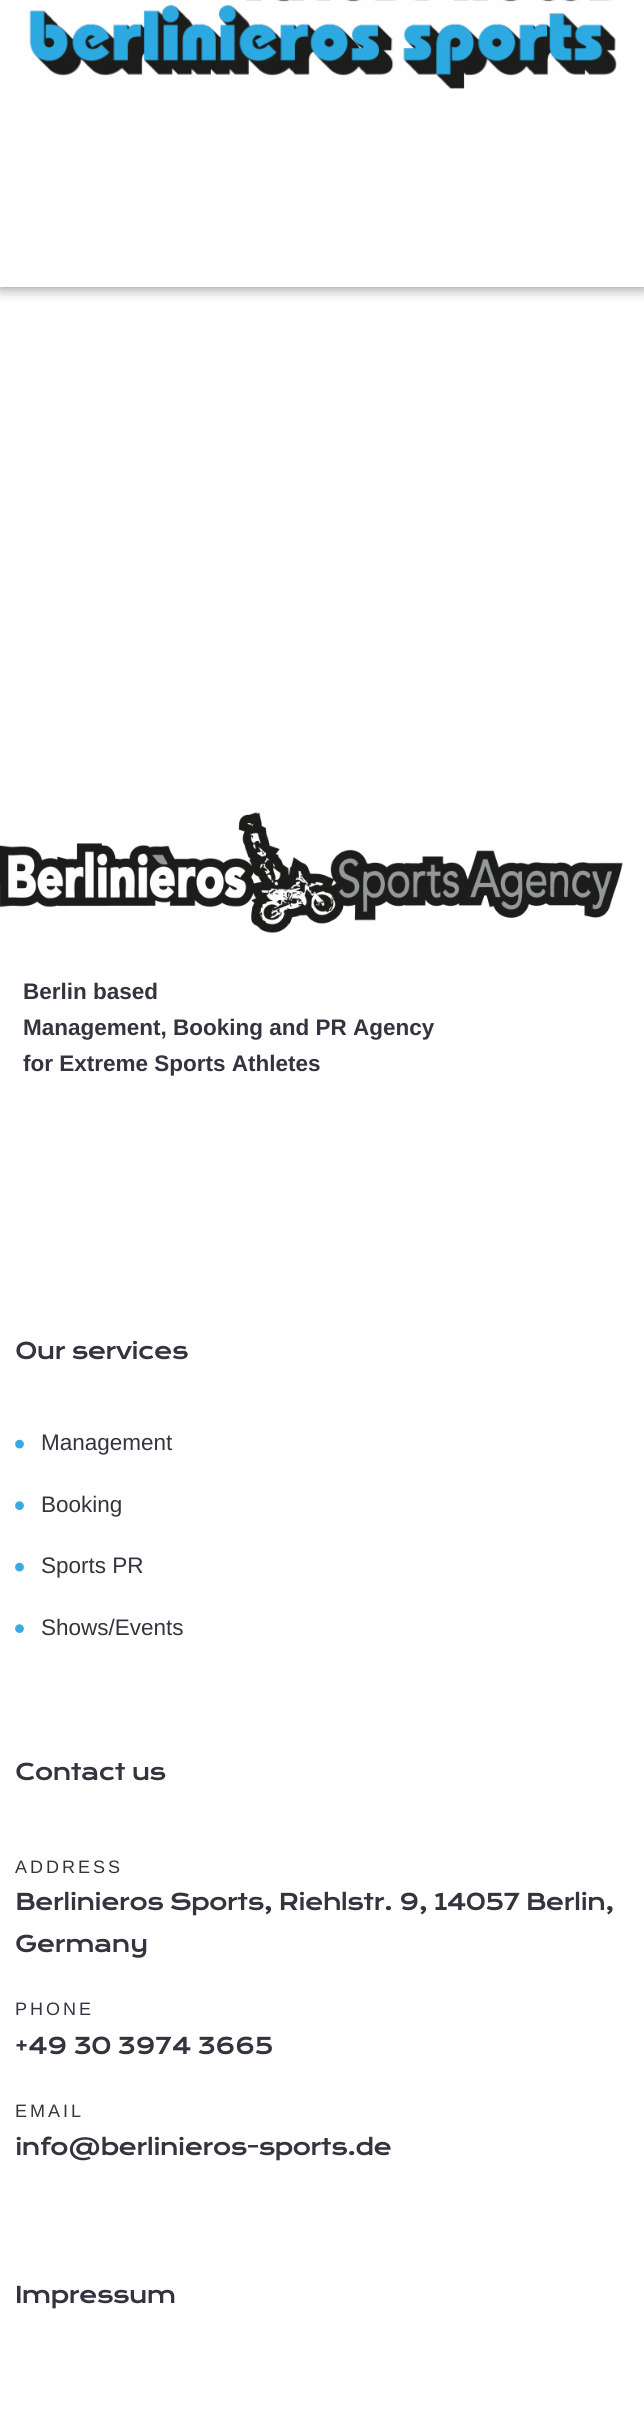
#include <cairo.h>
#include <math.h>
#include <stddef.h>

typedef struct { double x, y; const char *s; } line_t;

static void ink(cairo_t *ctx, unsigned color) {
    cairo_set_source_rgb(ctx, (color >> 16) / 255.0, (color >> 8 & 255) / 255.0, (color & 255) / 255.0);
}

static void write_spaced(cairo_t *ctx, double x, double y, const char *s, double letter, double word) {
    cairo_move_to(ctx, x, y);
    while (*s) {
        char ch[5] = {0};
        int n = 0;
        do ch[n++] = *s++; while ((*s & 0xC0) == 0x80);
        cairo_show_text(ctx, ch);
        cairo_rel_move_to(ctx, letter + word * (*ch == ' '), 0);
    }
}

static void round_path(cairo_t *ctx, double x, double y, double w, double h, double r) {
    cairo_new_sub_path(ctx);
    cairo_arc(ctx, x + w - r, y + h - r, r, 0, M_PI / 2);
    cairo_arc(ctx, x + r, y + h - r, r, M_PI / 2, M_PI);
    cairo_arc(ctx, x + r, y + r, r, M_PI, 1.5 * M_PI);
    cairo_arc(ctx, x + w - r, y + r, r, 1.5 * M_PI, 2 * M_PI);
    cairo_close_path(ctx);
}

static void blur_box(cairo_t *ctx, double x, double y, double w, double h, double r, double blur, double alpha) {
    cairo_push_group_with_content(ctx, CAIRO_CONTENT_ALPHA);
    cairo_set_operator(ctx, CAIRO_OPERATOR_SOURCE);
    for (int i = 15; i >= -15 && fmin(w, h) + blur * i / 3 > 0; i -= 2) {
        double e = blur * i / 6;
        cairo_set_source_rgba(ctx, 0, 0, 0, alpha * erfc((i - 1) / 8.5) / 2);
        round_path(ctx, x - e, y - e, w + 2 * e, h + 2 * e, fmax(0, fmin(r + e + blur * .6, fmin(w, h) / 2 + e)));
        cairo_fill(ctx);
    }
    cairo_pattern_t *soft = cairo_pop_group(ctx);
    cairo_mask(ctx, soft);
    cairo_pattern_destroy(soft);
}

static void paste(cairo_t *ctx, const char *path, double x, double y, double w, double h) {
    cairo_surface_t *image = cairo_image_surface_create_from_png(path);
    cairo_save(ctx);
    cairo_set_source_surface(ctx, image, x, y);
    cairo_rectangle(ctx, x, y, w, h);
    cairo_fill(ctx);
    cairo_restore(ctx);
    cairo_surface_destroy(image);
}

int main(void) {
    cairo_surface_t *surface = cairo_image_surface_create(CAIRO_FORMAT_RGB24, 644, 2414);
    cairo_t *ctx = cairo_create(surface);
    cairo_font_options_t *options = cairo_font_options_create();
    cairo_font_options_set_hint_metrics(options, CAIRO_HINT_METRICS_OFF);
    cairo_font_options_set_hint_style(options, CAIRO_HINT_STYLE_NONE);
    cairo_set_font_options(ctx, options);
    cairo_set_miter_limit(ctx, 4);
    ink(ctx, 0xFFFFFF);
    cairo_paint(ctx);
    ink(ctx, 0x000000);
    blur_box(ctx, 0, -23, 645, 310, 0, 7.5, 0.5);
    ink(ctx, 0xFFFFFF);
    cairo_rectangle(ctx, 0, 0, 644, 287);
    cairo_fill(ctx);
    paste(ctx, "media/1.png", 29, 0, 588, 89);
    paste(ctx, "media/2.png", 0, 812, 623, 121);
    cairo_select_font_face(ctx, "Liberation Sans", CAIRO_FONT_SLANT_NORMAL, CAIRO_FONT_WEIGHT_BOLD);
    cairo_set_font_size(ctx, 22.5);
    ink(ctx, 0x34343F);
    {
        static const line_t items[] = {
            {23, 999, "Berlin based"},
            {23, 1035, "Management, Booking and PR Agency"},
            {23, 1071, "for Extreme Sports Athletes"},
        };
        for (size_t i = 0; i < sizeof items / sizeof *items; i++) {
            cairo_move_to(ctx, items[i].x, items[i].y);
            cairo_show_text(ctx, items[i].s);
        }
    }
    cairo_select_font_face(ctx, "Krona One", CAIRO_FONT_SLANT_NORMAL, CAIRO_FONT_WEIGHT_NORMAL);
    write_spaced(ctx, 15, 1359, "Our services", -0.9, 0);
    paste(ctx, "media/3.png", 15, 1439, 9, 10);
    cairo_select_font_face(ctx, "Liberation Sans", CAIRO_FONT_SLANT_NORMAL, CAIRO_FONT_WEIGHT_NORMAL);
    cairo_move_to(ctx, 41, 1450);
    cairo_show_text(ctx, "Management");
    paste(ctx, "media/4.png", 15, 1501, 9, 9);
    cairo_move_to(ctx, 41, 1512);
    cairo_show_text(ctx, "Booking");
    paste(ctx, "media/3.png", 15, 1562, 9, 10);
    cairo_move_to(ctx, 41, 1573);
    cairo_show_text(ctx, "Sports PR");
    paste(ctx, "media/4.png", 15, 1624, 9, 9);
    cairo_move_to(ctx, 41, 1635);
    cairo_show_text(ctx, "Shows/Events");
    cairo_select_font_face(ctx, "Krona One", CAIRO_FONT_SLANT_NORMAL, CAIRO_FONT_WEIGHT_NORMAL);
    write_spaced(ctx, 15, 1780, "Contact us", -0.9, 0);
    cairo_select_font_face(ctx, "Liberation Sans", CAIRO_FONT_SLANT_NORMAL, CAIRO_FONT_WEIGHT_NORMAL);
    cairo_set_font_size(ctx, 18);
    write_spaced(ctx, 15, 1873, "ADDRESS", 3, 0);
    cairo_select_font_face(ctx, "Krona One", CAIRO_FONT_SLANT_NORMAL, CAIRO_FONT_WEIGHT_NORMAL);
    cairo_set_font_size(ctx, 22.5);
    write_spaced(ctx, 15, 1910, "Berlinieros Sports, Riehlstr. 9, 14057 Berlin,", -0.9, 0);
    write_spaced(ctx, 15, 1952, "Germany", -0.9, 0);
    cairo_select_font_face(ctx, "Liberation Sans", CAIRO_FONT_SLANT_NORMAL, CAIRO_FONT_WEIGHT_NORMAL);
    cairo_set_font_size(ctx, 18);
    write_spaced(ctx, 15, 2015, "PHONE", 3, 0);
    cairo_select_font_face(ctx, "Krona One", CAIRO_FONT_SLANT_NORMAL, CAIRO_FONT_WEIGHT_NORMAL);
    cairo_set_font_size(ctx, 22.5);
    write_spaced(ctx, 15, 2054, "+49 30 3974 3665", -0.9, 0);
    cairo_select_font_face(ctx, "Liberation Sans", CAIRO_FONT_SLANT_NORMAL, CAIRO_FONT_WEIGHT_NORMAL);
    cairo_set_font_size(ctx, 18);
    write_spaced(ctx, 15, 2117, "EMAIL", 3, 0);
    cairo_select_font_face(ctx, "Krona One", CAIRO_FONT_SLANT_NORMAL, CAIRO_FONT_WEIGHT_NORMAL);
    cairo_set_font_size(ctx, 22.5);
    write_spaced(ctx, 15, 2155, "info@berlinieros-sports.de", -0.9, 0);
    write_spaced(ctx, 15, 2303, "Impressum", -0.9, 0);
    cairo_surface_write_to_png(surface, "image.png");
    cairo_font_options_destroy(options);
    cairo_destroy(ctx);
    cairo_surface_destroy(surface);
    return 0;
}
